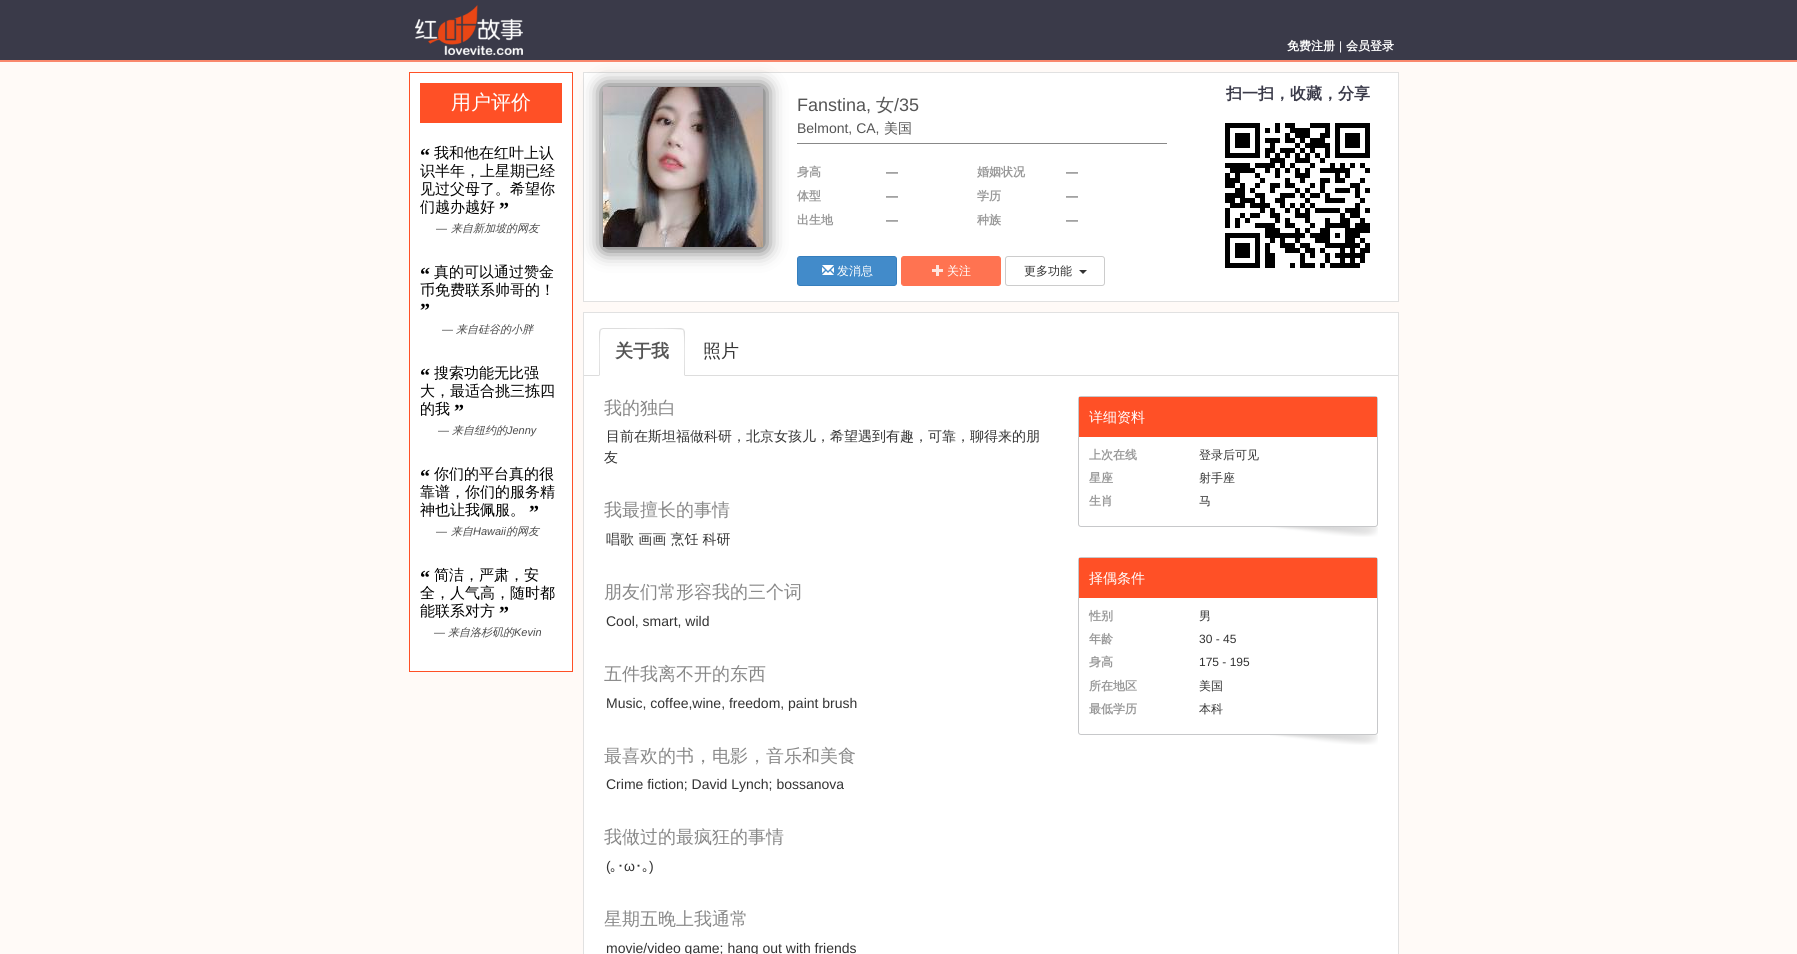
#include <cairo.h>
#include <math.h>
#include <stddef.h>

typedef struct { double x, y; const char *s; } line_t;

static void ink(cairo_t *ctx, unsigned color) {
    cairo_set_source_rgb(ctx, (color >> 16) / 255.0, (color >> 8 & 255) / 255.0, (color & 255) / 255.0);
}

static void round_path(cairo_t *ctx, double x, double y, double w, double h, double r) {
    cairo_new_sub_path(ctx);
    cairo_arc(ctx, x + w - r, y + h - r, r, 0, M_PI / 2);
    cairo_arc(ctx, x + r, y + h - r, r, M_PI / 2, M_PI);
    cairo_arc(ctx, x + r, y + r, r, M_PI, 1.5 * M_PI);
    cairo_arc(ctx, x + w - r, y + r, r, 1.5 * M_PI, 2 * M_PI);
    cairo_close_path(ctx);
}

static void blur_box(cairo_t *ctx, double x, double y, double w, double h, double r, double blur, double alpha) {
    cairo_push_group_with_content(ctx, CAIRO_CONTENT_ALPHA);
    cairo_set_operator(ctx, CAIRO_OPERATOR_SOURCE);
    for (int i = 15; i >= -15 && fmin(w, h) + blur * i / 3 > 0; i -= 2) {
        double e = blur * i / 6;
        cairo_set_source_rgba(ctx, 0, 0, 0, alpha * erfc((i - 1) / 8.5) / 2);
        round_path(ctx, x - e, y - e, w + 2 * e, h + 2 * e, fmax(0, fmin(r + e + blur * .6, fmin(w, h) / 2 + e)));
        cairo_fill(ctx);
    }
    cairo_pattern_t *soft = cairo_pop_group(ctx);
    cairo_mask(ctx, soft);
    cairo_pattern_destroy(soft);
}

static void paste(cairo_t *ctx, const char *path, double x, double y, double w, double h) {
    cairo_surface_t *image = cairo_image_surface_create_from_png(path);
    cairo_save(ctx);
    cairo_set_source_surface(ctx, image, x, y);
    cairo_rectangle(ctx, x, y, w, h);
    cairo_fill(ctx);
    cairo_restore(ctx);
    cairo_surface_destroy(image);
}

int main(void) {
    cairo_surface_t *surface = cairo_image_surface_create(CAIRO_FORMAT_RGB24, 1797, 954);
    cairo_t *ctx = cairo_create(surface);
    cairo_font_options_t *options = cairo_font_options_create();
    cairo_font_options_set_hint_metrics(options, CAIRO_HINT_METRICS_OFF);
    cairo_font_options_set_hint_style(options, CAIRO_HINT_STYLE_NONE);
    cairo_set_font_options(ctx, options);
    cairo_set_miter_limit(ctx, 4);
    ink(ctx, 0xFFFAF7);
    cairo_paint(ctx);
    ink(ctx, 0x3A3A49);
    cairo_rectangle(ctx, 0, 0, 1797, 60);
    cairo_fill(ctx);
    ink(ctx, 0xF9886D);
    cairo_rectangle(ctx, 0, 60, 1797, 2);
    cairo_fill(ctx);
    paste(ctx, "media/1.png", 415, 5, 108, 50);
    cairo_select_font_face(ctx, "WenQuanYi Zen Hei", CAIRO_FONT_SLANT_NORMAL, CAIRO_FONT_WEIGHT_BOLD);
    cairo_set_font_size(ctx, 12);
    ink(ctx, 0xFFFFFF);
    cairo_move_to(ctx, 1287, 50);
    cairo_show_text(ctx, "免费注册");
    cairo_select_font_face(ctx, "Liberation Sans", CAIRO_FONT_SLANT_NORMAL, CAIRO_FONT_WEIGHT_NORMAL);
    cairo_move_to(ctx, 1339, 50);
    cairo_show_text(ctx, "|");
    cairo_select_font_face(ctx, "WenQuanYi Zen Hei", CAIRO_FONT_SLANT_NORMAL, CAIRO_FONT_WEIGHT_BOLD);
    cairo_move_to(ctx, 1346, 50);
    cairo_show_text(ctx, "会员登录");
    cairo_rectangle(ctx, 409.5, 72.5, 163, 599);
    cairo_fill_preserve(ctx);
    ink(ctx, 0xFF5026);
    cairo_set_line_width(ctx, 1);
    cairo_stroke(ctx);
    cairo_rectangle(ctx, 420, 83, 142, 40);
    cairo_fill(ctx);
    cairo_select_font_face(ctx, "WenQuanYi Zen Hei Medium", CAIRO_FONT_SLANT_NORMAL, CAIRO_FONT_WEIGHT_NORMAL);
    cairo_set_font_size(ctx, 20);
    ink(ctx, 0xFFFFFF);
    cairo_move_to(ctx, 451, 109);
    cairo_show_text(ctx, "用户评价");
    cairo_select_font_face(ctx, "Liberation Serif", CAIRO_FONT_SLANT_NORMAL, CAIRO_FONT_WEIGHT_BOLD);
    ink(ctx, 0x000000);
    cairo_move_to(ctx, 420, 162);
    cairo_show_text(ctx, "“");
    cairo_select_font_face(ctx, "WenQuanYi Zen Hei Medium", CAIRO_FONT_SLANT_NORMAL, CAIRO_FONT_WEIGHT_NORMAL);
    cairo_set_font_size(ctx, 15);
    {
        static const line_t items[] = {
            {434, 158, "我和他在红叶上认"},
            {420, 176, "识半年，上星期已经"},
            {420, 194, "见过父母了。希望你"},
            {420, 212, "们越办越好"},
        };
        for (size_t i = 0; i < sizeof items / sizeof *items; i++) {
            cairo_move_to(ctx, items[i].x, items[i].y);
            cairo_show_text(ctx, items[i].s);
        }
    }
    cairo_select_font_face(ctx, "Liberation Serif", CAIRO_FONT_SLANT_NORMAL, CAIRO_FONT_WEIGHT_BOLD);
    cairo_set_font_size(ctx, 20);
    cairo_move_to(ctx, 499, 216);
    cairo_show_text(ctx, "”");
    cairo_select_font_face(ctx, "Liberation Sans", CAIRO_FONT_SLANT_ITALIC, CAIRO_FONT_WEIGHT_NORMAL);
    cairo_set_font_size(ctx, 11);
    ink(ctx, 0x4A4A4A);
    cairo_move_to(ctx, 436, 232);
    cairo_show_text(ctx, "—");
    cairo_select_font_face(ctx, "WenQuanYi Zen Hei Medium", CAIRO_FONT_SLANT_ITALIC, CAIRO_FONT_WEIGHT_NORMAL);
    cairo_move_to(ctx, 451, 232);
    cairo_show_text(ctx, "来自新加坡的网友");
    cairo_select_font_face(ctx, "Liberation Serif", CAIRO_FONT_SLANT_NORMAL, CAIRO_FONT_WEIGHT_BOLD);
    cairo_set_font_size(ctx, 20);
    ink(ctx, 0x000000);
    cairo_move_to(ctx, 420, 281);
    cairo_show_text(ctx, "“");
    cairo_select_font_face(ctx, "WenQuanYi Zen Hei Medium", CAIRO_FONT_SLANT_NORMAL, CAIRO_FONT_WEIGHT_NORMAL);
    cairo_set_font_size(ctx, 15);
    cairo_move_to(ctx, 434, 277);
    cairo_show_text(ctx, "真的可以通过赞金");
    cairo_move_to(ctx, 420, 295);
    cairo_show_text(ctx, "币免费联系帅哥的！");
    cairo_select_font_face(ctx, "Liberation Serif", CAIRO_FONT_SLANT_NORMAL, CAIRO_FONT_WEIGHT_BOLD);
    cairo_set_font_size(ctx, 20);
    cairo_move_to(ctx, 420, 317);
    cairo_show_text(ctx, "”");
    cairo_select_font_face(ctx, "Liberation Sans", CAIRO_FONT_SLANT_ITALIC, CAIRO_FONT_WEIGHT_NORMAL);
    cairo_set_font_size(ctx, 11);
    ink(ctx, 0x4A4A4A);
    cairo_move_to(ctx, 442, 333);
    cairo_show_text(ctx, "—");
    cairo_select_font_face(ctx, "WenQuanYi Zen Hei Medium", CAIRO_FONT_SLANT_ITALIC, CAIRO_FONT_WEIGHT_NORMAL);
    cairo_move_to(ctx, 456, 333);
    cairo_show_text(ctx, "来自硅谷的小胖");
    cairo_select_font_face(ctx, "Liberation Serif", CAIRO_FONT_SLANT_NORMAL, CAIRO_FONT_WEIGHT_BOLD);
    cairo_set_font_size(ctx, 20);
    ink(ctx, 0x000000);
    cairo_move_to(ctx, 420, 382);
    cairo_show_text(ctx, "“");
    cairo_select_font_face(ctx, "WenQuanYi Zen Hei Medium", CAIRO_FONT_SLANT_NORMAL, CAIRO_FONT_WEIGHT_NORMAL);
    cairo_set_font_size(ctx, 15);
    {
        static const line_t items[] = {
            {434, 378, "搜索功能无比强"},
            {420, 396, "大，最适合挑三拣四"},
            {420, 414, "的我"},
        };
        for (size_t i = 0; i < sizeof items / sizeof *items; i++) {
            cairo_move_to(ctx, items[i].x, items[i].y);
            cairo_show_text(ctx, items[i].s);
        }
    }
    cairo_select_font_face(ctx, "Liberation Serif", CAIRO_FONT_SLANT_NORMAL, CAIRO_FONT_WEIGHT_BOLD);
    cairo_set_font_size(ctx, 20);
    cairo_move_to(ctx, 454, 418);
    cairo_show_text(ctx, "”");
    cairo_select_font_face(ctx, "Liberation Sans", CAIRO_FONT_SLANT_ITALIC, CAIRO_FONT_WEIGHT_NORMAL);
    cairo_set_font_size(ctx, 11);
    ink(ctx, 0x4A4A4A);
    cairo_move_to(ctx, 438, 434);
    cairo_show_text(ctx, "—");
    cairo_select_font_face(ctx, "WenQuanYi Zen Hei Medium", CAIRO_FONT_SLANT_ITALIC, CAIRO_FONT_WEIGHT_NORMAL);
    cairo_move_to(ctx, 452, 434);
    cairo_show_text(ctx, "来自纽约的");
    cairo_select_font_face(ctx, "Liberation Sans", CAIRO_FONT_SLANT_ITALIC, CAIRO_FONT_WEIGHT_NORMAL);
    cairo_move_to(ctx, 507, 434);
    cairo_show_text(ctx, "Jenny");
    cairo_select_font_face(ctx, "Liberation Serif", CAIRO_FONT_SLANT_NORMAL, CAIRO_FONT_WEIGHT_BOLD);
    cairo_set_font_size(ctx, 20);
    ink(ctx, 0x000000);
    cairo_move_to(ctx, 420, 483);
    cairo_show_text(ctx, "“");
    cairo_select_font_face(ctx, "WenQuanYi Zen Hei Medium", CAIRO_FONT_SLANT_NORMAL, CAIRO_FONT_WEIGHT_NORMAL);
    cairo_set_font_size(ctx, 15);
    {
        static const line_t items[] = {
            {434, 479, "你们的平台真的很"},
            {420, 497, "靠谱，你们的服务精"},
            {420, 515, "神也让我佩服。"},
        };
        for (size_t i = 0; i < sizeof items / sizeof *items; i++) {
            cairo_move_to(ctx, items[i].x, items[i].y);
            cairo_show_text(ctx, items[i].s);
        }
    }
    cairo_select_font_face(ctx, "Liberation Serif", CAIRO_FONT_SLANT_NORMAL, CAIRO_FONT_WEIGHT_BOLD);
    cairo_set_font_size(ctx, 20);
    cairo_move_to(ctx, 529, 519);
    cairo_show_text(ctx, "”");
    cairo_select_font_face(ctx, "Liberation Sans", CAIRO_FONT_SLANT_ITALIC, CAIRO_FONT_WEIGHT_NORMAL);
    cairo_set_font_size(ctx, 11);
    ink(ctx, 0x4A4A4A);
    cairo_move_to(ctx, 436, 535);
    cairo_show_text(ctx, "—");
    cairo_select_font_face(ctx, "WenQuanYi Zen Hei Medium", CAIRO_FONT_SLANT_ITALIC, CAIRO_FONT_WEIGHT_NORMAL);
    cairo_move_to(ctx, 451, 535);
    cairo_show_text(ctx, "来自");
    cairo_select_font_face(ctx, "Liberation Sans", CAIRO_FONT_SLANT_ITALIC, CAIRO_FONT_WEIGHT_NORMAL);
    cairo_move_to(ctx, 473, 535);
    cairo_show_text(ctx, "Hawaii");
    cairo_select_font_face(ctx, "WenQuanYi Zen Hei Medium", CAIRO_FONT_SLANT_ITALIC, CAIRO_FONT_WEIGHT_NORMAL);
    cairo_move_to(ctx, 506, 535);
    cairo_show_text(ctx, "的网友");
    cairo_select_font_face(ctx, "Liberation Serif", CAIRO_FONT_SLANT_NORMAL, CAIRO_FONT_WEIGHT_BOLD);
    cairo_set_font_size(ctx, 20);
    ink(ctx, 0x000000);
    cairo_move_to(ctx, 420, 584);
    cairo_show_text(ctx, "“");
    cairo_select_font_face(ctx, "WenQuanYi Zen Hei Medium", CAIRO_FONT_SLANT_NORMAL, CAIRO_FONT_WEIGHT_NORMAL);
    cairo_set_font_size(ctx, 15);
    {
        static const line_t items[] = {
            {434, 580, "简洁，严肃，安"},
            {420, 598, "全，人气高，随时都"},
            {420, 616, "能联系对方"},
        };
        for (size_t i = 0; i < sizeof items / sizeof *items; i++) {
            cairo_move_to(ctx, items[i].x, items[i].y);
            cairo_show_text(ctx, items[i].s);
        }
    }
    cairo_select_font_face(ctx, "Liberation Serif", CAIRO_FONT_SLANT_NORMAL, CAIRO_FONT_WEIGHT_BOLD);
    cairo_set_font_size(ctx, 20);
    cairo_move_to(ctx, 499, 620);
    cairo_show_text(ctx, "”");
    cairo_select_font_face(ctx, "Liberation Sans", CAIRO_FONT_SLANT_ITALIC, CAIRO_FONT_WEIGHT_NORMAL);
    cairo_set_font_size(ctx, 11);
    ink(ctx, 0x4A4A4A);
    cairo_move_to(ctx, 434, 636);
    cairo_show_text(ctx, "—");
    cairo_select_font_face(ctx, "WenQuanYi Zen Hei Medium", CAIRO_FONT_SLANT_ITALIC, CAIRO_FONT_WEIGHT_NORMAL);
    cairo_move_to(ctx, 448, 636);
    cairo_show_text(ctx, "来自洛杉矶的");
    cairo_select_font_face(ctx, "Liberation Sans", CAIRO_FONT_SLANT_ITALIC, CAIRO_FONT_WEIGHT_NORMAL);
    cairo_move_to(ctx, 514, 636);
    cairo_show_text(ctx, "Kevin");
    ink(ctx, 0xFFFFFF);
    cairo_rectangle(ctx, 583.5, 72.5, 815, 229);
    cairo_fill_preserve(ctx);
    ink(ctx, 0xE1E1E1);
    cairo_stroke(ctx);
    ink(ctx, 0x333333);
    blur_box(ctx, 604, 88, 160, 160, 0, 10, 1);
    paste(ctx, "media/2.png", 603, 87, 160, 160);
    cairo_select_font_face(ctx, "WenQuanYi Zen Hei", CAIRO_FONT_SLANT_NORMAL, CAIRO_FONT_WEIGHT_BOLD);
    cairo_set_font_size(ctx, 16);
    ink(ctx, 0x3A3A49);
    cairo_move_to(ctx, 1226, 99);
    cairo_show_text(ctx, "扫一扫，收藏，分享");
    paste(ctx, "media/3.png", 1225, 123, 145, 145);
    ink(ctx, 0x888888);
    cairo_rectangle(ctx, 797, 143, 370, 1);
    cairo_fill(ctx);
    cairo_select_font_face(ctx, "Liberation Sans", CAIRO_FONT_SLANT_NORMAL, CAIRO_FONT_WEIGHT_NORMAL);
    cairo_set_font_size(ctx, 18);
    ink(ctx, 0x555555);
    cairo_move_to(ctx, 797, 111);
    cairo_show_text(ctx, "Fanstina,");
    cairo_select_font_face(ctx, "WenQuanYi Zen Hei Medium", CAIRO_FONT_SLANT_NORMAL, CAIRO_FONT_WEIGHT_NORMAL);
    cairo_move_to(ctx, 876, 111);
    cairo_show_text(ctx, "女");
    cairo_select_font_face(ctx, "Liberation Sans", CAIRO_FONT_SLANT_NORMAL, CAIRO_FONT_WEIGHT_NORMAL);
    cairo_move_to(ctx, 894, 111);
    cairo_show_text(ctx, "/35");
    cairo_set_font_size(ctx, 14);
    cairo_move_to(ctx, 797, 133);
    cairo_show_text(ctx, "Belmont, CA,");
    cairo_select_font_face(ctx, "WenQuanYi Zen Hei Medium", CAIRO_FONT_SLANT_NORMAL, CAIRO_FONT_WEIGHT_NORMAL);
    cairo_move_to(ctx, 884, 133);
    cairo_show_text(ctx, "美国");
    cairo_select_font_face(ctx, "WenQuanYi Zen Hei", CAIRO_FONT_SLANT_NORMAL, CAIRO_FONT_WEIGHT_BOLD);
    cairo_set_font_size(ctx, 12);
    ink(ctx, 0x999999);
    cairo_move_to(ctx, 797, 176);
    cairo_show_text(ctx, "身高");
    cairo_select_font_face(ctx, "Liberation Sans", CAIRO_FONT_SLANT_NORMAL, CAIRO_FONT_WEIGHT_NORMAL);
    ink(ctx, 0x333333);
    cairo_move_to(ctx, 886, 176);
    cairo_show_text(ctx, "—");
    cairo_select_font_face(ctx, "WenQuanYi Zen Hei", CAIRO_FONT_SLANT_NORMAL, CAIRO_FONT_WEIGHT_BOLD);
    ink(ctx, 0x999999);
    cairo_move_to(ctx, 797, 200);
    cairo_show_text(ctx, "体型");
    cairo_select_font_face(ctx, "Liberation Sans", CAIRO_FONT_SLANT_NORMAL, CAIRO_FONT_WEIGHT_NORMAL);
    ink(ctx, 0x333333);
    cairo_move_to(ctx, 886, 200);
    cairo_show_text(ctx, "—");
    cairo_select_font_face(ctx, "WenQuanYi Zen Hei", CAIRO_FONT_SLANT_NORMAL, CAIRO_FONT_WEIGHT_BOLD);
    ink(ctx, 0x999999);
    cairo_move_to(ctx, 797, 224);
    cairo_show_text(ctx, "出生地");
    cairo_select_font_face(ctx, "Liberation Sans", CAIRO_FONT_SLANT_NORMAL, CAIRO_FONT_WEIGHT_NORMAL);
    ink(ctx, 0x333333);
    cairo_move_to(ctx, 886, 224);
    cairo_show_text(ctx, "—");
    cairo_select_font_face(ctx, "WenQuanYi Zen Hei", CAIRO_FONT_SLANT_NORMAL, CAIRO_FONT_WEIGHT_BOLD);
    ink(ctx, 0x999999);
    cairo_move_to(ctx, 977, 176);
    cairo_show_text(ctx, "婚姻状况");
    cairo_select_font_face(ctx, "Liberation Sans", CAIRO_FONT_SLANT_NORMAL, CAIRO_FONT_WEIGHT_NORMAL);
    ink(ctx, 0x333333);
    cairo_move_to(ctx, 1066, 176);
    cairo_show_text(ctx, "—");
    cairo_select_font_face(ctx, "WenQuanYi Zen Hei", CAIRO_FONT_SLANT_NORMAL, CAIRO_FONT_WEIGHT_BOLD);
    ink(ctx, 0x999999);
    cairo_move_to(ctx, 977, 200);
    cairo_show_text(ctx, "学历");
    cairo_select_font_face(ctx, "Liberation Sans", CAIRO_FONT_SLANT_NORMAL, CAIRO_FONT_WEIGHT_NORMAL);
    ink(ctx, 0x333333);
    cairo_move_to(ctx, 1066, 200);
    cairo_show_text(ctx, "—");
    cairo_select_font_face(ctx, "WenQuanYi Zen Hei", CAIRO_FONT_SLANT_NORMAL, CAIRO_FONT_WEIGHT_BOLD);
    ink(ctx, 0x999999);
    cairo_move_to(ctx, 977, 224);
    cairo_show_text(ctx, "种族");
    cairo_select_font_face(ctx, "Liberation Sans", CAIRO_FONT_SLANT_NORMAL, CAIRO_FONT_WEIGHT_NORMAL);
    ink(ctx, 0x333333);
    cairo_move_to(ctx, 1066, 224);
    cairo_show_text(ctx, "—");
    ink(ctx, 0x428BCA);
    round_path(ctx, 797.5, 256.5, 99, 29, 2.5);
    cairo_fill_preserve(ctx);
    ink(ctx, 0x357EBD);
    cairo_stroke(ctx);
    paste(ctx, "media/4.png", 822, 265, 12, 10);
    cairo_select_font_face(ctx, "WenQuanYi Zen Hei Medium", CAIRO_FONT_SLANT_NORMAL, CAIRO_FONT_WEIGHT_NORMAL);
    ink(ctx, 0xFFFFFF);
    cairo_move_to(ctx, 837, 275);
    cairo_show_text(ctx, "发消息");
    ink(ctx, 0xFF7351);
    round_path(ctx, 901.5, 256.5, 99, 29, 2.5);
    cairo_fill_preserve(ctx);
    cairo_stroke(ctx);
    paste(ctx, "media/5.png", 932, 265, 11, 11);
    ink(ctx, 0xFFFFFF);
    cairo_move_to(ctx, 947, 275);
    cairo_show_text(ctx, "关注");
    round_path(ctx, 1005.5, 256.5, 99, 29, 2.5);
    ink(ctx, 0xCCCCCC);
    cairo_stroke(ctx);
    ink(ctx, 0x333333);
    cairo_move_to(ctx, 1024, 275);
    cairo_show_text(ctx, "更多功能");
    cairo_new_path(ctx);
    cairo_move_to(ctx, 1079, 270);
    cairo_line_to(ctx, 1087, 270);
    cairo_line_to(ctx, 1083, 274);
    cairo_close_path(ctx);
    cairo_fill(ctx);
    ink(ctx, 0xFFFFFF);
    cairo_rectangle(ctx, 583.5, 312.5, 815, 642);
    cairo_fill_preserve(ctx);
    ink(ctx, 0xE1E1E1);
    cairo_stroke(ctx);
    ink(ctx, 0xDDDDDD);
    cairo_rectangle(ctx, 584, 375, 814, 1);
    cairo_fill(ctx);
    ink(ctx, 0xFFFFFF);
    cairo_new_path(ctx);
    cairo_move_to(ctx, 603, 328);
    cairo_line_to(ctx, 681, 328);
    cairo_curve_to(ctx, 683, 328, 685, 330, 685, 332);
    cairo_line_to(ctx, 685, 376);
    cairo_line_to(ctx, 599, 376);
    cairo_line_to(ctx, 599, 332);
    cairo_curve_to(ctx, 599, 330, 601, 328, 603, 328);
    cairo_close_path(ctx);
    cairo_fill(ctx);
    ink(ctx, 0xDDDDDD);
    cairo_new_path(ctx);
    cairo_move_to(ctx, 603, 328);
    cairo_line_to(ctx, 600, 329);
    cairo_line_to(ctx, 601, 330);
    cairo_line_to(ctx, 603, 329);
    cairo_line_to(ctx, 616, 329);
    cairo_curve_to(ctx, 623, 329, 681, 328, 683, 330);
    cairo_line_to(ctx, 684, 329);
    cairo_line_to(ctx, 681, 328);
    cairo_close_path(ctx);
    cairo_fill(ctx);
    cairo_new_path(ctx);
    cairo_move_to(ctx, 685, 376);
    cairo_line_to(ctx, 685, 332);
    cairo_curve_to(ctx, 685, 331, 684, 330, 684, 329);
    cairo_line_to(ctx, 683, 330);
    cairo_curve_to(ctx, 685, 332, 684, 370, 684, 375);
    cairo_close_path(ctx);
    cairo_fill(ctx);
    cairo_new_path(ctx);
    cairo_move_to(ctx, 599, 376);
    cairo_line_to(ctx, 600, 375);
    cairo_curve_to(ctx, 600, 370, 599, 332, 601, 330);
    cairo_line_to(ctx, 600, 329);
    cairo_line_to(ctx, 599, 332);
    cairo_close_path(ctx);
    cairo_fill(ctx);
    cairo_select_font_face(ctx, "WenQuanYi Zen Hei", CAIRO_FONT_SLANT_NORMAL, CAIRO_FONT_WEIGHT_BOLD);
    cairo_set_font_size(ctx, 18);
    ink(ctx, 0x555555);
    cairo_move_to(ctx, 615, 357);
    cairo_show_text(ctx, "关于我");
    cairo_select_font_face(ctx, "WenQuanYi Zen Hei Medium", CAIRO_FONT_SLANT_NORMAL, CAIRO_FONT_WEIGHT_NORMAL);
    ink(ctx, 0x333333);
    cairo_move_to(ctx, 703, 357);
    cairo_show_text(ctx, "照片");
    ink(ctx, 0x888888);
    cairo_move_to(ctx, 604, 414);
    cairo_show_text(ctx, "我的独白");
    cairo_set_font_size(ctx, 14);
    ink(ctx, 0x333333);
    cairo_move_to(ctx, 606, 441);
    cairo_show_text(ctx, "目前在斯坦福做科研，北京女孩儿，希望遇到有趣，可靠，聊得来的朋");
    cairo_move_to(ctx, 604, 462);
    cairo_show_text(ctx, "友");
    cairo_set_font_size(ctx, 18);
    ink(ctx, 0x888888);
    cairo_move_to(ctx, 604, 516);
    cairo_show_text(ctx, "我最擅长的事情");
    cairo_set_font_size(ctx, 14);
    ink(ctx, 0x333333);
    cairo_move_to(ctx, 606, 544);
    cairo_show_text(ctx, "唱歌 画画 烹饪 科研");
    cairo_set_font_size(ctx, 18);
    ink(ctx, 0x888888);
    cairo_move_to(ctx, 604, 598);
    cairo_show_text(ctx, "朋友们常形容我的三个词");
    cairo_select_font_face(ctx, "Liberation Sans", CAIRO_FONT_SLANT_NORMAL, CAIRO_FONT_WEIGHT_NORMAL);
    cairo_set_font_size(ctx, 14);
    ink(ctx, 0x333333);
    cairo_move_to(ctx, 606, 626);
    cairo_show_text(ctx, "Cool, smart, wild");
    cairo_select_font_face(ctx, "WenQuanYi Zen Hei Medium", CAIRO_FONT_SLANT_NORMAL, CAIRO_FONT_WEIGHT_NORMAL);
    cairo_set_font_size(ctx, 18);
    ink(ctx, 0x888888);
    cairo_move_to(ctx, 604, 680);
    cairo_show_text(ctx, "五件我离不开的东西");
    cairo_select_font_face(ctx, "Liberation Sans", CAIRO_FONT_SLANT_NORMAL, CAIRO_FONT_WEIGHT_NORMAL);
    cairo_set_font_size(ctx, 14);
    ink(ctx, 0x333333);
    cairo_move_to(ctx, 606, 708);
    cairo_show_text(ctx, "Music, coffee,wine, freedom, paint brush");
    cairo_select_font_face(ctx, "WenQuanYi Zen Hei Medium", CAIRO_FONT_SLANT_NORMAL, CAIRO_FONT_WEIGHT_NORMAL);
    cairo_set_font_size(ctx, 18);
    ink(ctx, 0x888888);
    cairo_move_to(ctx, 604, 762);
    cairo_show_text(ctx, "最喜欢的书，电影，音乐和美食");
    cairo_select_font_face(ctx, "Liberation Sans", CAIRO_FONT_SLANT_NORMAL, CAIRO_FONT_WEIGHT_NORMAL);
    cairo_set_font_size(ctx, 14);
    ink(ctx, 0x333333);
    cairo_move_to(ctx, 606, 789);
    cairo_show_text(ctx, "Crime fiction; David Lynch; bossanova");
    cairo_select_font_face(ctx, "WenQuanYi Zen Hei Medium", CAIRO_FONT_SLANT_NORMAL, CAIRO_FONT_WEIGHT_NORMAL);
    cairo_set_font_size(ctx, 18);
    ink(ctx, 0x888888);
    cairo_move_to(ctx, 604, 843);
    cairo_show_text(ctx, "我做过的最疯狂的事情");
    cairo_select_font_face(ctx, "Liberation Sans", CAIRO_FONT_SLANT_NORMAL, CAIRO_FONT_WEIGHT_NORMAL);
    cairo_set_font_size(ctx, 14);
    ink(ctx, 0x333333);
    cairo_move_to(ctx, 606, 871);
    cairo_show_text(ctx, "(");
    cairo_select_font_face(ctx, "IPAGothic", CAIRO_FONT_SLANT_NORMAL, CAIRO_FONT_WEIGHT_NORMAL);
    cairo_move_to(ctx, 610, 871);
    cairo_show_text(ctx, "｡･");
    cairo_select_font_face(ctx, "Liberation Sans", CAIRO_FONT_SLANT_NORMAL, CAIRO_FONT_WEIGHT_NORMAL);
    cairo_move_to(ctx, 624, 871);
    cairo_show_text(ctx, "ω");
    cairo_select_font_face(ctx, "IPAGothic", CAIRO_FONT_SLANT_NORMAL, CAIRO_FONT_WEIGHT_NORMAL);
    cairo_move_to(ctx, 635, 871);
    cairo_show_text(ctx, "･｡");
    cairo_select_font_face(ctx, "Liberation Sans", CAIRO_FONT_SLANT_NORMAL, CAIRO_FONT_WEIGHT_NORMAL);
    cairo_move_to(ctx, 649, 871);
    cairo_show_text(ctx, ")");
    cairo_select_font_face(ctx, "WenQuanYi Zen Hei Medium", CAIRO_FONT_SLANT_NORMAL, CAIRO_FONT_WEIGHT_NORMAL);
    cairo_set_font_size(ctx, 18);
    ink(ctx, 0x888888);
    cairo_move_to(ctx, 604, 925);
    cairo_show_text(ctx, "星期五晚上我通常");
    cairo_select_font_face(ctx, "Liberation Sans", CAIRO_FONT_SLANT_NORMAL, CAIRO_FONT_WEIGHT_NORMAL);
    cairo_set_font_size(ctx, 14);
    ink(ctx, 0x333333);
    cairo_move_to(ctx, 606, 953);
    cairo_show_text(ctx, "movie/video game; hang out with friends");
    round_path(ctx, 1078.5, 396.5, 299, 130, 2.5);
    ink(ctx, 0xC7C8CA);
    cairo_stroke(ctx);
    ink(ctx, 0xFF5026);
    cairo_rectangle(ctx, 1079, 397, 298, 40);
    cairo_fill(ctx);
    cairo_select_font_face(ctx, "WenQuanYi Zen Hei Medium", CAIRO_FONT_SLANT_NORMAL, CAIRO_FONT_WEIGHT_NORMAL);
    ink(ctx, 0xFFFFFF);
    cairo_move_to(ctx, 1089, 422);
    cairo_show_text(ctx, "详细资料");
    cairo_select_font_face(ctx, "WenQuanYi Zen Hei", CAIRO_FONT_SLANT_NORMAL, CAIRO_FONT_WEIGHT_BOLD);
    cairo_set_font_size(ctx, 12);
    ink(ctx, 0x999999);
    cairo_move_to(ctx, 1089, 459);
    cairo_show_text(ctx, "上次在线");
    cairo_select_font_face(ctx, "WenQuanYi Zen Hei Medium", CAIRO_FONT_SLANT_NORMAL, CAIRO_FONT_WEIGHT_NORMAL);
    ink(ctx, 0x333333);
    cairo_move_to(ctx, 1199, 459);
    cairo_show_text(ctx, "登录后可见");
    cairo_select_font_face(ctx, "WenQuanYi Zen Hei", CAIRO_FONT_SLANT_NORMAL, CAIRO_FONT_WEIGHT_BOLD);
    ink(ctx, 0x999999);
    cairo_move_to(ctx, 1089, 482);
    cairo_show_text(ctx, "星座");
    cairo_select_font_face(ctx, "WenQuanYi Zen Hei Medium", CAIRO_FONT_SLANT_NORMAL, CAIRO_FONT_WEIGHT_NORMAL);
    ink(ctx, 0x333333);
    cairo_move_to(ctx, 1199, 482);
    cairo_show_text(ctx, "射手座");
    cairo_select_font_face(ctx, "WenQuanYi Zen Hei", CAIRO_FONT_SLANT_NORMAL, CAIRO_FONT_WEIGHT_BOLD);
    ink(ctx, 0x999999);
    cairo_move_to(ctx, 1089, 505);
    cairo_show_text(ctx, "生肖");
    cairo_select_font_face(ctx, "WenQuanYi Zen Hei Medium", CAIRO_FONT_SLANT_NORMAL, CAIRO_FONT_WEIGHT_NORMAL);
    ink(ctx, 0x333333);
    cairo_move_to(ctx, 1199, 505);
    cairo_show_text(ctx, "马");
    paste(ctx, "media/6.png", 1270, 527, 108, 10);
    round_path(ctx, 1078.5, 557.5, 299, 177, 2.5);
    ink(ctx, 0xC7C8CA);
    cairo_stroke(ctx);
    ink(ctx, 0xFF5026);
    cairo_rectangle(ctx, 1079, 558, 298, 40);
    cairo_fill(ctx);
    cairo_set_font_size(ctx, 14);
    ink(ctx, 0xFFFFFF);
    cairo_move_to(ctx, 1089, 583);
    cairo_show_text(ctx, "择偶条件");
    cairo_select_font_face(ctx, "WenQuanYi Zen Hei", CAIRO_FONT_SLANT_NORMAL, CAIRO_FONT_WEIGHT_BOLD);
    cairo_set_font_size(ctx, 12);
    ink(ctx, 0x999999);
    cairo_move_to(ctx, 1089, 620);
    cairo_show_text(ctx, "性别");
    cairo_select_font_face(ctx, "WenQuanYi Zen Hei Medium", CAIRO_FONT_SLANT_NORMAL, CAIRO_FONT_WEIGHT_NORMAL);
    ink(ctx, 0x333333);
    cairo_move_to(ctx, 1199, 620);
    cairo_show_text(ctx, "男");
    cairo_select_font_face(ctx, "WenQuanYi Zen Hei", CAIRO_FONT_SLANT_NORMAL, CAIRO_FONT_WEIGHT_BOLD);
    ink(ctx, 0x999999);
    cairo_move_to(ctx, 1089, 643);
    cairo_show_text(ctx, "年龄");
    cairo_select_font_face(ctx, "Liberation Sans", CAIRO_FONT_SLANT_NORMAL, CAIRO_FONT_WEIGHT_NORMAL);
    ink(ctx, 0x333333);
    cairo_move_to(ctx, 1199, 643);
    cairo_show_text(ctx, "30 - 45");
    cairo_select_font_face(ctx, "WenQuanYi Zen Hei", CAIRO_FONT_SLANT_NORMAL, CAIRO_FONT_WEIGHT_BOLD);
    ink(ctx, 0x999999);
    cairo_move_to(ctx, 1089, 666);
    cairo_show_text(ctx, "身高");
    cairo_select_font_face(ctx, "Liberation Sans", CAIRO_FONT_SLANT_NORMAL, CAIRO_FONT_WEIGHT_NORMAL);
    ink(ctx, 0x333333);
    cairo_move_to(ctx, 1199, 666);
    cairo_show_text(ctx, "175 - 195");
    cairo_select_font_face(ctx, "WenQuanYi Zen Hei", CAIRO_FONT_SLANT_NORMAL, CAIRO_FONT_WEIGHT_BOLD);
    ink(ctx, 0x999999);
    cairo_move_to(ctx, 1089, 690);
    cairo_show_text(ctx, "所在地区");
    cairo_select_font_face(ctx, "WenQuanYi Zen Hei Medium", CAIRO_FONT_SLANT_NORMAL, CAIRO_FONT_WEIGHT_NORMAL);
    ink(ctx, 0x333333);
    cairo_move_to(ctx, 1199, 690);
    cairo_show_text(ctx, "美国");
    cairo_select_font_face(ctx, "WenQuanYi Zen Hei", CAIRO_FONT_SLANT_NORMAL, CAIRO_FONT_WEIGHT_BOLD);
    ink(ctx, 0x999999);
    cairo_move_to(ctx, 1089, 713);
    cairo_show_text(ctx, "最低学历");
    cairo_select_font_face(ctx, "WenQuanYi Zen Hei Medium", CAIRO_FONT_SLANT_NORMAL, CAIRO_FONT_WEIGHT_NORMAL);
    ink(ctx, 0x333333);
    cairo_move_to(ctx, 1199, 713);
    cairo_show_text(ctx, "本科");
    paste(ctx, "media/6.png", 1270, 735, 108, 10);
    cairo_surface_write_to_png(surface, "image.png");
    cairo_font_options_destroy(options);
    cairo_destroy(ctx);
    cairo_surface_destroy(surface);
    return 0;
}
